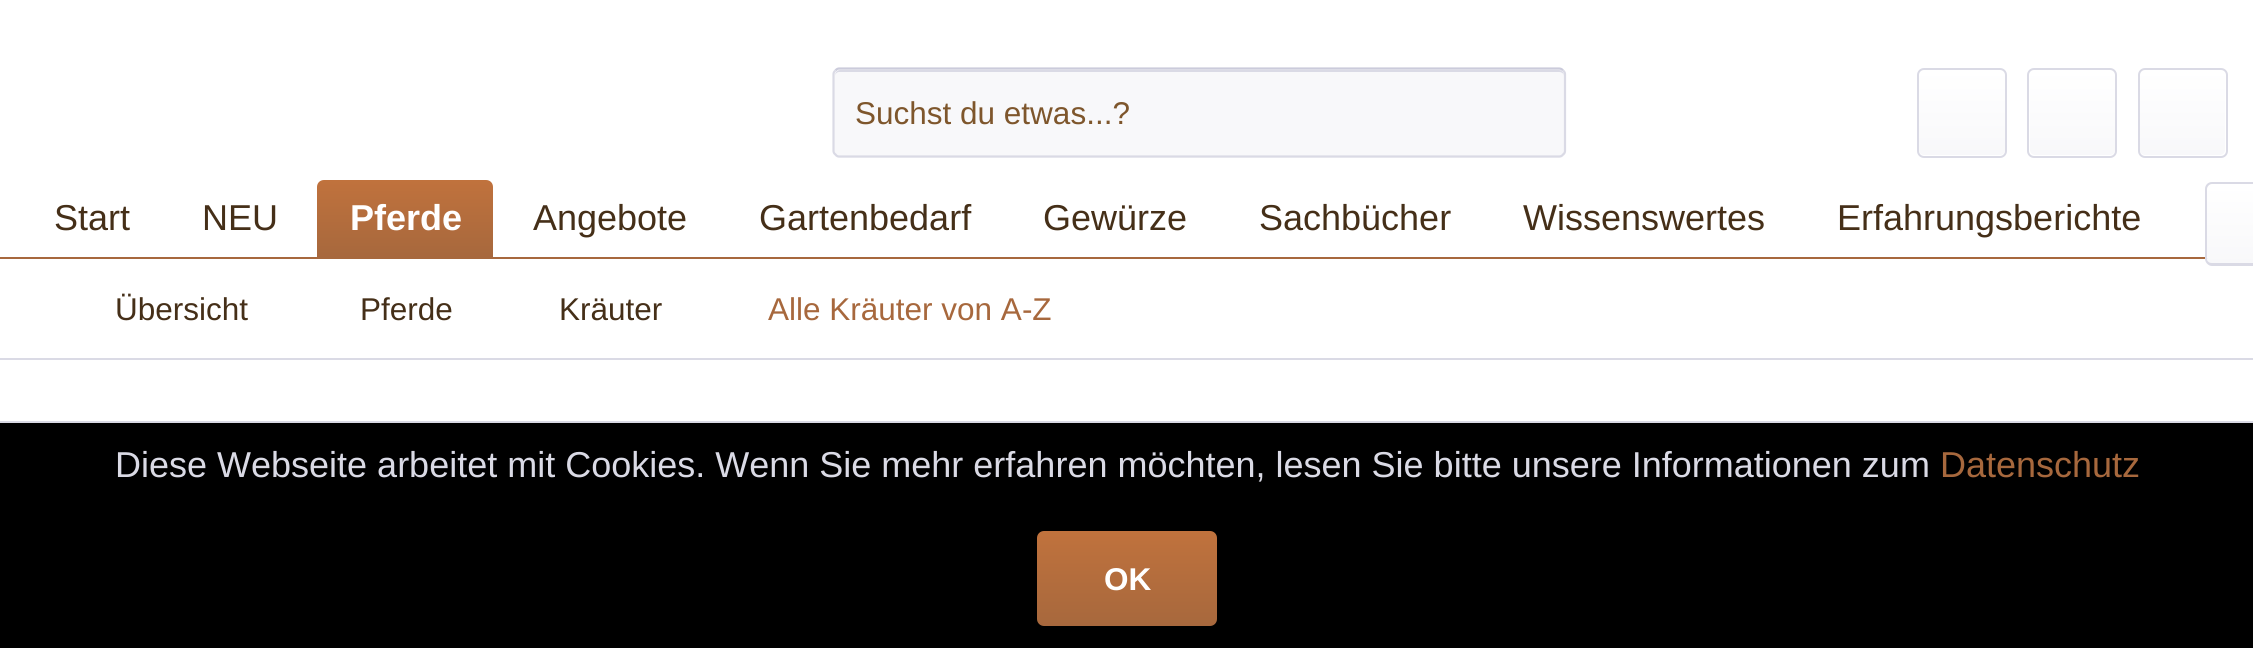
#include <cairo.h>
#include <math.h>
#include <stddef.h>

typedef struct { double x, y; const char *s; } line_t;

static void ink(cairo_t *ctx, unsigned color) {
    cairo_set_source_rgb(ctx, (color >> 16) / 255.0, (color >> 8 & 255) / 255.0, (color & 255) / 255.0);
}

static void round_path(cairo_t *ctx, double x, double y, double w, double h, double r) {
    cairo_new_sub_path(ctx);
    cairo_arc(ctx, x + w - r, y + h - r, r, 0, M_PI / 2);
    cairo_arc(ctx, x + r, y + h - r, r, M_PI / 2, M_PI);
    cairo_arc(ctx, x + r, y + r, r, M_PI, 1.5 * M_PI);
    cairo_arc(ctx, x + w - r, y + r, r, 1.5 * M_PI, 2 * M_PI);
    cairo_close_path(ctx);
}

int main(void) {
    cairo_surface_t *surface = cairo_image_surface_create(CAIRO_FORMAT_RGB24, 2253, 648);
    cairo_t *ctx = cairo_create(surface);
    cairo_font_options_t *options = cairo_font_options_create();
    cairo_font_options_set_hint_metrics(options, CAIRO_HINT_METRICS_OFF);
    cairo_font_options_set_hint_style(options, CAIRO_HINT_STYLE_NONE);
    cairo_set_font_options(ctx, options);
    cairo_set_miter_limit(ctx, 4);
    cairo_pattern_t *gradient;
    ink(ctx, 0xFFFFFF);
    cairo_paint(ctx);
    ink(ctx, 0xF8F8FA);
    round_path(ctx, 833, 68, 733, 90, 7);
    cairo_fill(ctx);
    ink(ctx, 0xDADAE5);
    cairo_new_path(ctx);
    cairo_move_to(ctx, 839, 72);
    cairo_line_to(ctx, 1559, 72);
    cairo_curve_to(ctx, 1562, 72, 1564, 74, 1564, 76);
    cairo_curve_to(ctx, 1564, 73, 1562, 70, 1559, 70);
    cairo_line_to(ctx, 840, 70);
    cairo_curve_to(ctx, 837, 70, 835, 73, 835, 76);
    cairo_curve_to(ctx, 835, 74, 837, 72, 839, 72);
    cairo_close_path(ctx);
    cairo_fill(ctx);
    cairo_new_path(ctx);
    cairo_move_to(ctx, 835.5, 70.5);
    cairo_curve_to(ctx, 836.5, 69, 838, 68.5, 839, 68.5);
    cairo_line_to(ctx, 1559, 68.5);
    cairo_curve_to(ctx, 1560.5, 68.5, 1562, 69, 1563, 70.5);
    ink(ctx, 0xCBCBDB);
    cairo_set_line_width(ctx, 2.2);
    cairo_stroke(ctx);
    cairo_new_path(ctx);
    cairo_move_to(ctx, 1563, 70.5);
    cairo_curve_to(ctx, 1564.5, 71.5, 1565, 73, 1565, 74);
    cairo_line_to(ctx, 1565, 151);
    cairo_curve_to(ctx, 1565, 152, 1564.5, 153.5, 1563, 154.5);
    cairo_curve_to(ctx, 1562, 156, 1560.5, 156.5, 1559, 156.5);
    cairo_line_to(ctx, 839, 156.5);
    cairo_curve_to(ctx, 838, 156.5, 836.5, 156, 835.5, 154.5);
    cairo_curve_to(ctx, 834, 153.5, 833.5, 152, 833.5, 151);
    cairo_line_to(ctx, 833.5, 74);
    cairo_curve_to(ctx, 833.5, 73, 834, 71.5, 835.5, 70.5);
    ink(ctx, 0xDADAE5);
    cairo_stroke(ctx);
    cairo_select_font_face(ctx, "Liberation Sans", CAIRO_FONT_SLANT_NORMAL, CAIRO_FONT_WEIGHT_NORMAL);
    cairo_set_font_size(ctx, 31.5);
    ink(ctx, 0x7E562C);
    cairo_move_to(ctx, 855, 124);
    cairo_show_text(ctx, "Suchst du etwas...?");
    gradient = cairo_pattern_create_linear(1962, 70, 1962, 155);
    cairo_pattern_add_color_stop_rgba(gradient, 0, 1, 1, 1, 1);
    cairo_pattern_add_color_stop_rgba(gradient, 1, 0.973, 0.973, 0.98, 1);
    cairo_set_source(ctx, gradient);
    cairo_pattern_destroy(gradient);
    round_path(ctx, 1919, 70, 86, 85, 5);
    cairo_fill(ctx);
    round_path(ctx, 1918, 69, 88, 88, 6);
    ink(ctx, 0xDADAE5);
    cairo_set_line_width(ctx, 2);
    cairo_stroke(ctx);
    gradient = cairo_pattern_create_linear(2072, 70, 2072, 155);
    cairo_pattern_add_color_stop_rgba(gradient, 0, 1, 1, 1, 1);
    cairo_pattern_add_color_stop_rgba(gradient, 1, 0.973, 0.973, 0.98, 1);
    cairo_set_source(ctx, gradient);
    cairo_pattern_destroy(gradient);
    round_path(ctx, 2030, 70, 85, 85, 5);
    cairo_fill(ctx);
    round_path(ctx, 2028, 69, 88, 88, 6);
    ink(ctx, 0xDADAE5);
    cairo_stroke(ctx);
    gradient = cairo_pattern_create_linear(2183, 70, 2183, 155);
    cairo_pattern_add_color_stop_rgba(gradient, 0, 1, 1, 1, 1);
    cairo_pattern_add_color_stop_rgba(gradient, 1, 0.973, 0.973, 0.98, 1);
    cairo_set_source(ctx, gradient);
    cairo_pattern_destroy(gradient);
    round_path(ctx, 2140, 70, 85, 85, 5);
    cairo_fill(ctx);
    round_path(ctx, 2139, 69, 88, 88, 6);
    ink(ctx, 0xDADAE5);
    cairo_stroke(ctx);
    ink(ctx, 0xA7683D);
    cairo_rectangle(ctx, 0, 257, 2208, 2);
    cairo_fill(ctx);
    cairo_set_font_size(ctx, 36);
    ink(ctx, 0x452F18);
    cairo_move_to(ctx, 54, 230);
    cairo_show_text(ctx, "Start");
    cairo_move_to(ctx, 202, 230);
    cairo_show_text(ctx, "NEU");
    gradient = cairo_pattern_create_linear(405, 180, 405, 257);
    cairo_pattern_add_color_stop_rgba(gradient, 0, 0.753, 0.447, 0.239, 1);
    cairo_pattern_add_color_stop_rgba(gradient, 1, 0.655, 0.408, 0.239, 1);
    cairo_set_source(ctx, gradient);
    cairo_pattern_destroy(gradient);
    cairo_new_path(ctx);
    cairo_move_to(ctx, 324, 180);
    cairo_line_to(ctx, 486, 180);
    cairo_curve_to(ctx, 490, 180, 493, 183, 493, 187);
    cairo_line_to(ctx, 493, 257);
    cairo_line_to(ctx, 317, 257);
    cairo_line_to(ctx, 317, 187);
    cairo_curve_to(ctx, 317, 183, 320, 180, 324, 180);
    cairo_close_path(ctx);
    cairo_fill(ctx);
    cairo_select_font_face(ctx, "Liberation Sans", CAIRO_FONT_SLANT_NORMAL, CAIRO_FONT_WEIGHT_BOLD);
    ink(ctx, 0xFFFFFF);
    cairo_move_to(ctx, 350, 230);
    cairo_show_text(ctx, "Pferde");
    cairo_select_font_face(ctx, "Liberation Sans", CAIRO_FONT_SLANT_NORMAL, CAIRO_FONT_WEIGHT_NORMAL);
    ink(ctx, 0x452F18);
    {
        static const line_t items[] = {
            {533, 230, "Angebote"},
            {759, 230, "Gartenbedarf"},
            {1043, 230, "Gewürze"},
            {1259, 230, "Sachbücher"},
            {1523, 230, "Wissenswertes"},
            {1837, 230, "Erfahrungsberichte"},
        };
        for (size_t i = 0; i < sizeof items / sizeof *items; i++) {
            cairo_move_to(ctx, items[i].x, items[i].y);
            cairo_show_text(ctx, items[i].s);
        }
    }
    gradient = cairo_pattern_create_linear(2231, 185, 2231, 263);
    cairo_pattern_add_color_stop_rgba(gradient, 0, 1, 1, 1, 1);
    cairo_pattern_add_color_stop_rgba(gradient, 1, 0.973, 0.973, 0.98, 1);
    cairo_set_source(ctx, gradient);
    cairo_pattern_destroy(gradient);
    cairo_new_path(ctx);
    cairo_move_to(ctx, 2212, 185);
    cairo_line_to(ctx, 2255, 185);
    cairo_line_to(ctx, 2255, 263);
    cairo_line_to(ctx, 2212, 263);
    cairo_curve_to(ctx, 2209, 263, 2207, 261, 2207, 258);
    cairo_line_to(ctx, 2207, 190);
    cairo_curve_to(ctx, 2207, 187, 2209, 185, 2212, 185);
    cairo_close_path(ctx);
    cairo_fill(ctx);
    ink(ctx, 0xDADAE5);
    cairo_set_fill_rule(ctx, CAIRO_FILL_RULE_EVEN_ODD);
    cairo_new_path(ctx);
    cairo_move_to(ctx, 2212, 182);
    cairo_line_to(ctx, 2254, 182);
    cairo_line_to(ctx, 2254, 266);
    cairo_line_to(ctx, 2212, 266);
    cairo_curve_to(ctx, 2208, 266, 2205, 262, 2205, 259);
    cairo_line_to(ctx, 2205, 189);
    cairo_curve_to(ctx, 2205, 185, 2208, 182, 2212, 182);
    cairo_close_path(ctx);
    cairo_move_to(ctx, 2212, 184);
    cairo_line_to(ctx, 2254, 184);
    cairo_line_to(ctx, 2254, 263);
    cairo_line_to(ctx, 2212, 263);
    cairo_curve_to(ctx, 2209, 263, 2207, 261, 2207, 259);
    cairo_line_to(ctx, 2207, 189);
    cairo_curve_to(ctx, 2207, 187, 2209, 184, 2212, 184);
    cairo_close_path(ctx);
    cairo_fill(ctx);
    cairo_rectangle(ctx, 0, 358, 2253, 2);
    cairo_fill(ctx);
    cairo_set_font_size(ctx, 31.5);
    ink(ctx, 0x452F18);
    {
        static const line_t items[] = {
            {115, 320, "Übersicht"},
            {360, 320, "Pferde"},
            {559, 320, "Kräuter"},
        };
        for (size_t i = 0; i < sizeof items / sizeof *items; i++) {
            cairo_move_to(ctx, items[i].x, items[i].y);
            cairo_show_text(ctx, items[i].s);
        }
    }
    ink(ctx, 0xA7683D);
    cairo_move_to(ctx, 768, 320);
    cairo_show_text(ctx, "Alle Kräuter von A-Z");
    ink(ctx, 0x000000);
    cairo_rectangle(ctx, 0, 423, 2253, 225);
    cairo_fill(ctx);
    ink(ctx, 0xDADAE5);
    cairo_rectangle(ctx, 0, 421, 2253, 2);
    cairo_fill(ctx);
    cairo_set_font_size(ctx, 36);
    cairo_move_to(ctx, 115, 477);
    cairo_show_text(ctx, "Diese Webseite arbeitet mit Cookies. Wenn Sie mehr erfahren möchten, lesen Sie bitte unsere Informationen zum");
    ink(ctx, 0xA7683D);
    cairo_move_to(ctx, 1940, 477);
    cairo_show_text(ctx, "Datenschutz");
    gradient = cairo_pattern_create_linear(1127, 531, 1127, 626);
    cairo_pattern_add_color_stop_rgba(gradient, 0, 0.753, 0.447, 0.239, 1);
    cairo_pattern_add_color_stop_rgba(gradient, 1, 0.655, 0.408, 0.239, 1);
    cairo_set_source(ctx, gradient);
    cairo_pattern_destroy(gradient);
    round_path(ctx, 1037, 531, 180, 95, 7);
    cairo_fill(ctx);
    cairo_select_font_face(ctx, "Liberation Sans", CAIRO_FONT_SLANT_NORMAL, CAIRO_FONT_WEIGHT_BOLD);
    cairo_set_font_size(ctx, 31.5);
    ink(ctx, 0xFFFFFF);
    cairo_move_to(ctx, 1104, 590);
    cairo_show_text(ctx, "OK");
    cairo_surface_write_to_png(surface, "image.png");
    cairo_font_options_destroy(options);
    cairo_destroy(ctx);
    cairo_surface_destroy(surface);
    return 0;
}
